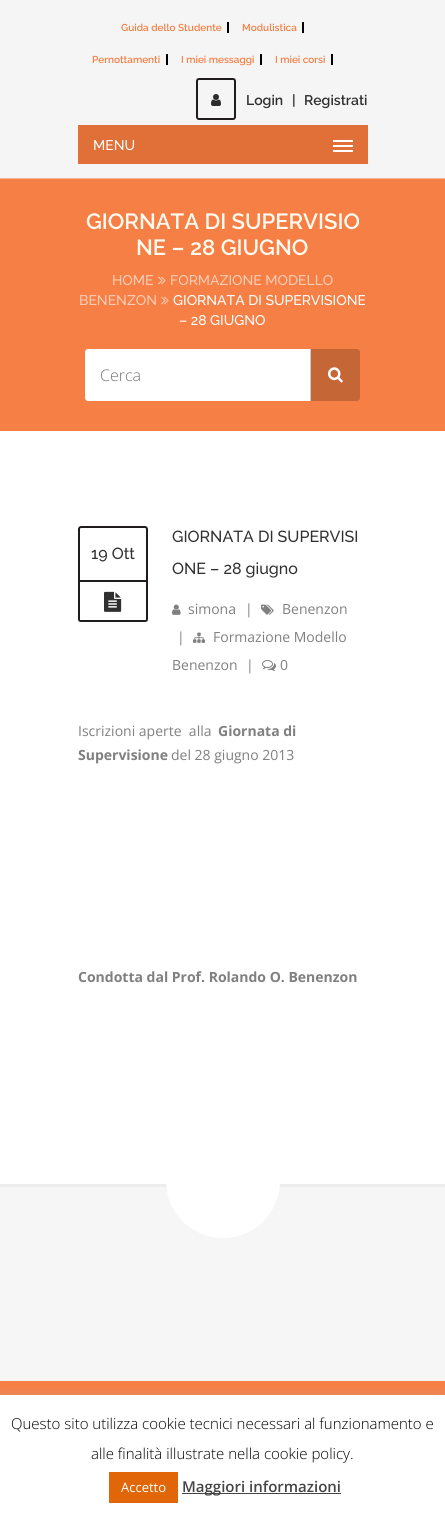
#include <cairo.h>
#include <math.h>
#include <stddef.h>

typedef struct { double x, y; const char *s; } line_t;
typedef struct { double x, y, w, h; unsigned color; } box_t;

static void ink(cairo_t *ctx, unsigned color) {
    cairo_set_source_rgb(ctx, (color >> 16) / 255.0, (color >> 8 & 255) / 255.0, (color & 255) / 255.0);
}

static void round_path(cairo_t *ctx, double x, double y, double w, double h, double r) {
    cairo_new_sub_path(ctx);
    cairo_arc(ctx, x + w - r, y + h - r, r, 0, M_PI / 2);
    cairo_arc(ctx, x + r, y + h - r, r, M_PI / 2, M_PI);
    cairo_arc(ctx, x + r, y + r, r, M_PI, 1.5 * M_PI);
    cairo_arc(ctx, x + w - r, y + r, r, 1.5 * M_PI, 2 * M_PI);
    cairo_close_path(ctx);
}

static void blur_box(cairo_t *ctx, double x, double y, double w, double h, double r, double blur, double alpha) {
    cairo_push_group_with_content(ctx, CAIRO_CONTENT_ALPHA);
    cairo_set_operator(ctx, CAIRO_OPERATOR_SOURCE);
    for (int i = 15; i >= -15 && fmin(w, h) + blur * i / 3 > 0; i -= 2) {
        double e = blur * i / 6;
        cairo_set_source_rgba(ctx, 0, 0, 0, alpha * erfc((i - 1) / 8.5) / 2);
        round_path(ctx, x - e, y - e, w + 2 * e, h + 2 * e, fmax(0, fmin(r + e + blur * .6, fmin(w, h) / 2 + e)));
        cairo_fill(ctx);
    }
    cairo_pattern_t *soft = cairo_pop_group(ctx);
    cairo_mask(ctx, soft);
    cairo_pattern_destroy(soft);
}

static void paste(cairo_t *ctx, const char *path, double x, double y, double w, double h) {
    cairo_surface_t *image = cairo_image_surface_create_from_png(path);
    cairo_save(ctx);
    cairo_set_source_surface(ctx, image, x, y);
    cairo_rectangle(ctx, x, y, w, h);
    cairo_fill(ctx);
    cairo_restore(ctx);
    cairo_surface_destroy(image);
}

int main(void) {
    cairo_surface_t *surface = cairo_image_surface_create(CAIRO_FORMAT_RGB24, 445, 1515);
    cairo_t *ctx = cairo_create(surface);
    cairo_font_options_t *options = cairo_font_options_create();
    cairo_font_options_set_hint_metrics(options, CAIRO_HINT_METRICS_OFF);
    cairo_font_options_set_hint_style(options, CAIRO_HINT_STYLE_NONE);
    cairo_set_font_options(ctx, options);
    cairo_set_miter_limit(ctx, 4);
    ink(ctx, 0xFFFFFF);
    cairo_paint(ctx);
    ink(ctx, 0xF5F5F5);
    cairo_rectangle(ctx, 0, 0, 445, 178);
    cairo_fill(ctx);
    cairo_select_font_face(ctx, "Raleway SemiBold", CAIRO_FONT_SLANT_NORMAL, CAIRO_FONT_WEIGHT_NORMAL);
    cairo_set_font_size(ctx, 10);
    ink(ctx, 0xF67F45);
    cairo_move_to(ctx, 121, 31);
    cairo_show_text(ctx, "Guida dello Studente");
    ink(ctx, 0x000000);
    cairo_rectangle(ctx, 227, 22, 2, 11);
    cairo_fill(ctx);
    ink(ctx, 0xF67F45);
    cairo_move_to(ctx, 242, 31);
    cairo_show_text(ctx, "Modulistica");
    ink(ctx, 0x000000);
    cairo_rectangle(ctx, 302, 22, 2, 11);
    cairo_fill(ctx);
    ink(ctx, 0xF67F45);
    cairo_move_to(ctx, 92, 63);
    cairo_show_text(ctx, "Pernottamenti");
    ink(ctx, 0x000000);
    cairo_rectangle(ctx, 166, 54, 2, 11);
    cairo_fill(ctx);
    ink(ctx, 0xF67F45);
    cairo_move_to(ctx, 181, 63);
    cairo_show_text(ctx, "I miei messaggi");
    ink(ctx, 0x000000);
    cairo_rectangle(ctx, 260, 54, 2, 11);
    cairo_fill(ctx);
    ink(ctx, 0xF67F45);
    cairo_move_to(ctx, 275, 63);
    cairo_show_text(ctx, "I miei corsi");
    ink(ctx, 0x000000);
    cairo_rectangle(ctx, 331, 54, 2, 11);
    cairo_fill(ctx);
    round_path(ctx, 197, 79, 38, 40, 2);
    ink(ctx, 0x201C1D);
    cairo_stroke(ctx);
    paste(ctx, "media/1.png", 211, 94, 10, 12);
    cairo_set_font_size(ctx, 14);
    ink(ctx, 0x303030);
    {
        static const line_t items[] = {
            {246, 105, "Login"},
            {292, 105, "|"},
            {304, 105, "Registrati"},
        };
        for (size_t i = 0; i < sizeof items / sizeof *items; i++) {
            cairo_move_to(ctx, items[i].x, items[i].y);
            cairo_show_text(ctx, items[i].s);
        }
    }
    ink(ctx, 0xE16F38);
    cairo_rectangle(ctx, 78, 125, 290, 39);
    cairo_fill(ctx);
    cairo_select_font_face(ctx, "Raleway Medium", CAIRO_FONT_SLANT_NORMAL, CAIRO_FONT_WEIGHT_NORMAL);
    ink(ctx, 0xFFFFFF);
    cairo_move_to(ctx, 93, 150);
    cairo_show_text(ctx, "MENU");
    {
        static const box_t items[] = {
            {333, 145, 20, 2, 0xFFFFFF},
            {333, 140, 20, 2, 0xFFFFFF},
            {333, 150, 20, 2, 0xFFFFFF},
            {0, 179, 445, 252, 0xF67F45},
            {0, 178, 445, 1, 0xF1B395},
        };
        for (size_t i = 0; i < sizeof items / sizeof *items; i++) {
            ink(ctx, items[i].color);
            cairo_rectangle(ctx, items[i].x, items[i].y, items[i].w, items[i].h);
            cairo_fill(ctx);
        }
    }
    cairo_select_font_face(ctx, "Raleway SemiBold", CAIRO_FONT_SLANT_NORMAL, CAIRO_FONT_WEIGHT_NORMAL);
    cairo_set_font_size(ctx, 22);
    ink(ctx, 0xFFFAF0);
    cairo_move_to(ctx, 86, 229);
    cairo_show_text(ctx, "GIORNATA DI SUPERVISIO");
    cairo_move_to(ctx, 136, 255);
    cairo_show_text(ctx, "NE – 28 GIUGNO");
    cairo_select_font_face(ctx, "Raleway Medium", CAIRO_FONT_SLANT_NORMAL, CAIRO_FONT_WEIGHT_NORMAL);
    cairo_set_font_size(ctx, 14);
    ink(ctx, 0xFBCCB5);
    cairo_move_to(ctx, 112, 285);
    cairo_show_text(ctx, "HOME");
    paste(ctx, "media/2.png", 158, 276, 8, 9);
    cairo_move_to(ctx, 170, 285);
    cairo_show_text(ctx, "FORMAZIONE MODELLO");
    cairo_move_to(ctx, 79, 305);
    cairo_show_text(ctx, "BENENZON");
    paste(ctx, "media/2.png", 161, 296, 8, 9);
    ink(ctx, 0xFFFFFF);
    cairo_move_to(ctx, 173, 305);
    cairo_show_text(ctx, "GIORNATA DI SUPERVISIONE");
    cairo_move_to(ctx, 179, 325);
    cairo_show_text(ctx, "– 28 GIUGNO");
    cairo_new_path(ctx);
    cairo_move_to(ctx, 88, 349);
    cairo_line_to(ctx, 311, 349);
    cairo_line_to(ctx, 311, 401);
    cairo_line_to(ctx, 88, 401);
    cairo_curve_to(ctx, 86.5, 401, 85, 399.5, 85, 398);
    cairo_line_to(ctx, 85, 352);
    cairo_curve_to(ctx, 85, 350.5, 86.5, 349, 88, 349);
    cairo_close_path(ctx);
    cairo_fill(ctx);
    cairo_select_font_face(ctx, "Open Sans Light", CAIRO_FONT_SLANT_NORMAL, CAIRO_FONT_WEIGHT_NORMAL);
    cairo_set_font_size(ctx, 16);
    ink(ctx, 0x757575);
    cairo_move_to(ctx, 100, 381);
    cairo_show_text(ctx, "Cerca");
    cairo_set_source_rgba(ctx, 0, 0, 0, 0.2);
    cairo_new_path(ctx);
    cairo_move_to(ctx, 310, 349);
    cairo_line_to(ctx, 357, 349);
    cairo_curve_to(ctx, 358.5, 349, 360, 350.5, 360, 352);
    cairo_line_to(ctx, 360, 398);
    cairo_curve_to(ctx, 360, 399.5, 358.5, 401, 357, 401);
    cairo_line_to(ctx, 310, 401);
    cairo_close_path(ctx);
    cairo_fill(ctx);
    paste(ctx, "media/3.png", 328, 367, 15, 16);
    cairo_new_path(ctx);
    cairo_move_to(ctx, 81, 527);
    cairo_line_to(ctx, 145, 527);
    cairo_curve_to(ctx, 146, 527, 147, 528, 147, 529);
    cairo_line_to(ctx, 147, 581);
    cairo_line_to(ctx, 79, 581);
    cairo_line_to(ctx, 79, 529);
    cairo_curve_to(ctx, 79, 528, 80, 527, 81, 527);
    cairo_close_path(ctx);
    ink(ctx, 0x201C1D);
    cairo_stroke(ctx);
    cairo_select_font_face(ctx, "Raleway Medium", CAIRO_FONT_SLANT_NORMAL, CAIRO_FONT_WEIGHT_NORMAL);
    ink(ctx, 0x303030);
    cairo_move_to(ctx, 91, 559);
    cairo_show_text(ctx, "19 Ott");
    ink(ctx, 0x201C1D);
    cairo_set_fill_rule(ctx, CAIRO_FILL_RULE_EVEN_ODD);
    cairo_new_path(ctx);
    cairo_move_to(ctx, 78, 582);
    cairo_line_to(ctx, 148, 582);
    cairo_line_to(ctx, 148, 619);
    cairo_curve_to(ctx, 148, 621, 147, 622, 145, 622);
    cairo_line_to(ctx, 81, 622);
    cairo_curve_to(ctx, 79, 622, 78, 621, 78, 619);
    cairo_close_path(ctx);
    cairo_move_to(ctx, 80, 582);
    cairo_line_to(ctx, 146, 582);
    cairo_line_to(ctx, 146, 619);
    cairo_curve_to(ctx, 146, 620, 146, 620, 145, 620);
    cairo_line_to(ctx, 81, 620);
    cairo_curve_to(ctx, 80, 620, 80, 620, 80, 619);
    cairo_close_path(ctx);
    cairo_fill(ctx);
    paste(ctx, "media/4.png", 104, 591, 18, 21);
    ink(ctx, 0x303030);
    cairo_move_to(ctx, 172, 542);
    cairo_show_text(ctx, "GIORNATA DI SUPERVISI");
    cairo_move_to(ctx, 172, 574);
    cairo_show_text(ctx, "ONE – 28 giugno");
    paste(ctx, "media/5.png", 172, 604, 9, 11);
    cairo_select_font_face(ctx, "Open Sans", CAIRO_FONT_SLANT_NORMAL, CAIRO_FONT_WEIGHT_NORMAL);
    cairo_set_font_size(ctx, 14);
    ink(ctx, 0x808080);
    cairo_move_to(ctx, 188, 614);
    cairo_show_text(ctx, "simona");
    cairo_move_to(ctx, 245, 614);
    cairo_show_text(ctx, "|");
    paste(ctx, "media/6.png", 261, 604, 13, 11);
    cairo_move_to(ctx, 282, 614);
    cairo_show_text(ctx, "Benenzon");
    cairo_move_to(ctx, 177, 642);
    cairo_show_text(ctx, "|");
    paste(ctx, "media/7.png", 193, 632, 12, 11);
    {
        static const line_t items[] = {
            {213, 642, "Formazione Modello"},
            {172, 670, "Benenzon"},
            {246, 670, "|"},
        };
        for (size_t i = 0; i < sizeof items / sizeof *items; i++) {
            cairo_move_to(ctx, items[i].x, items[i].y);
            cairo_show_text(ctx, items[i].s);
        }
    }
    paste(ctx, "media/8.png", 262, 660, 14, 11);
    cairo_move_to(ctx, 280, 670);
    cairo_show_text(ctx, "0");
    cairo_move_to(ctx, 78, 736);
    cairo_show_text(ctx, "Iscrizioni aperte  alla");
    cairo_select_font_face(ctx, "Open Sans", CAIRO_FONT_SLANT_NORMAL, CAIRO_FONT_WEIGHT_BOLD);
    cairo_move_to(ctx, 218, 736);
    cairo_show_text(ctx, "Giornata di");
    cairo_move_to(ctx, 78, 760);
    cairo_show_text(ctx, "Supervisione");
    cairo_select_font_face(ctx, "Open Sans", CAIRO_FONT_SLANT_NORMAL, CAIRO_FONT_WEIGHT_NORMAL);
    cairo_move_to(ctx, 171, 760);
    cairo_show_text(ctx, "del 28 giugno 2013");
    cairo_select_font_face(ctx, "Open Sans", CAIRO_FONT_SLANT_NORMAL, CAIRO_FONT_WEIGHT_BOLD);
    cairo_move_to(ctx, 78, 982);
    cairo_show_text(ctx, "Condotta dal Prof. Rolando O. Benenzon");
    ink(ctx, 0xF6F6F6);
    cairo_rectangle(ctx, 0, 1187, 445, 194);
    cairo_fill(ctx);
    ink(ctx, 0xEDEDED);
    cairo_rectangle(ctx, 0, 1184, 445, 3);
    cairo_fill(ctx);
    ink(ctx, 0xFFFFFF);
    cairo_arc(ctx, 223, 1181, 57, 0, 2 * M_PI);
    cairo_fill(ctx);
    ink(ctx, 0xF67F45);
    cairo_rectangle(ctx, 0, 1381, 445, 14);
    cairo_fill(ctx);
    ink(ctx, 0xACABAB);
    blur_box(ctx, 0, 1394, 445, 120, 0, 5, 0.3);
    ink(ctx, 0xFFFFFF);
    cairo_rectangle(ctx, 0, 1395, 445, 120);
    cairo_fill(ctx);
    cairo_select_font_face(ctx, "Open Sans Light", CAIRO_FONT_SLANT_NORMAL, CAIRO_FONT_WEIGHT_NORMAL);
    cairo_set_font_size(ctx, 15);
    ink(ctx, 0x000000);
    cairo_move_to(ctx, 11, 1429);
    cairo_show_text(ctx, "Questo sito utilizza cookie tecnici necessari al funzionamento e");
    cairo_move_to(ctx, 91, 1459);
    cairo_show_text(ctx, "alle finalità illustrate nella cookie policy.");
    ink(ctx, 0xE06608);
    cairo_rectangle(ctx, 109, 1472, 69, 31);
    cairo_fill(ctx);
    cairo_select_font_face(ctx, "Open Sans", CAIRO_FONT_SLANT_NORMAL, CAIRO_FONT_WEIGHT_NORMAL);
    cairo_set_font_size(ctx, 13);
    ink(ctx, 0xFFFFFF);
    cairo_move_to(ctx, 121, 1492);
    cairo_show_text(ctx, "Accetto");
    ink(ctx, 0x444444);
    cairo_rectangle(ctx, 182, 1493, 159, 1);
    cairo_fill(ctx);
    cairo_select_font_face(ctx, "Open Sans SemiBold", CAIRO_FONT_SLANT_NORMAL, CAIRO_FONT_WEIGHT_NORMAL);
    cairo_set_font_size(ctx, 15);
    cairo_move_to(ctx, 182, 1492);
    cairo_show_text(ctx, "Maggiori informazioni");
    cairo_surface_write_to_png(surface, "image.png");
    cairo_font_options_destroy(options);
    cairo_destroy(ctx);
    cairo_surface_destroy(surface);
    return 0;
}
